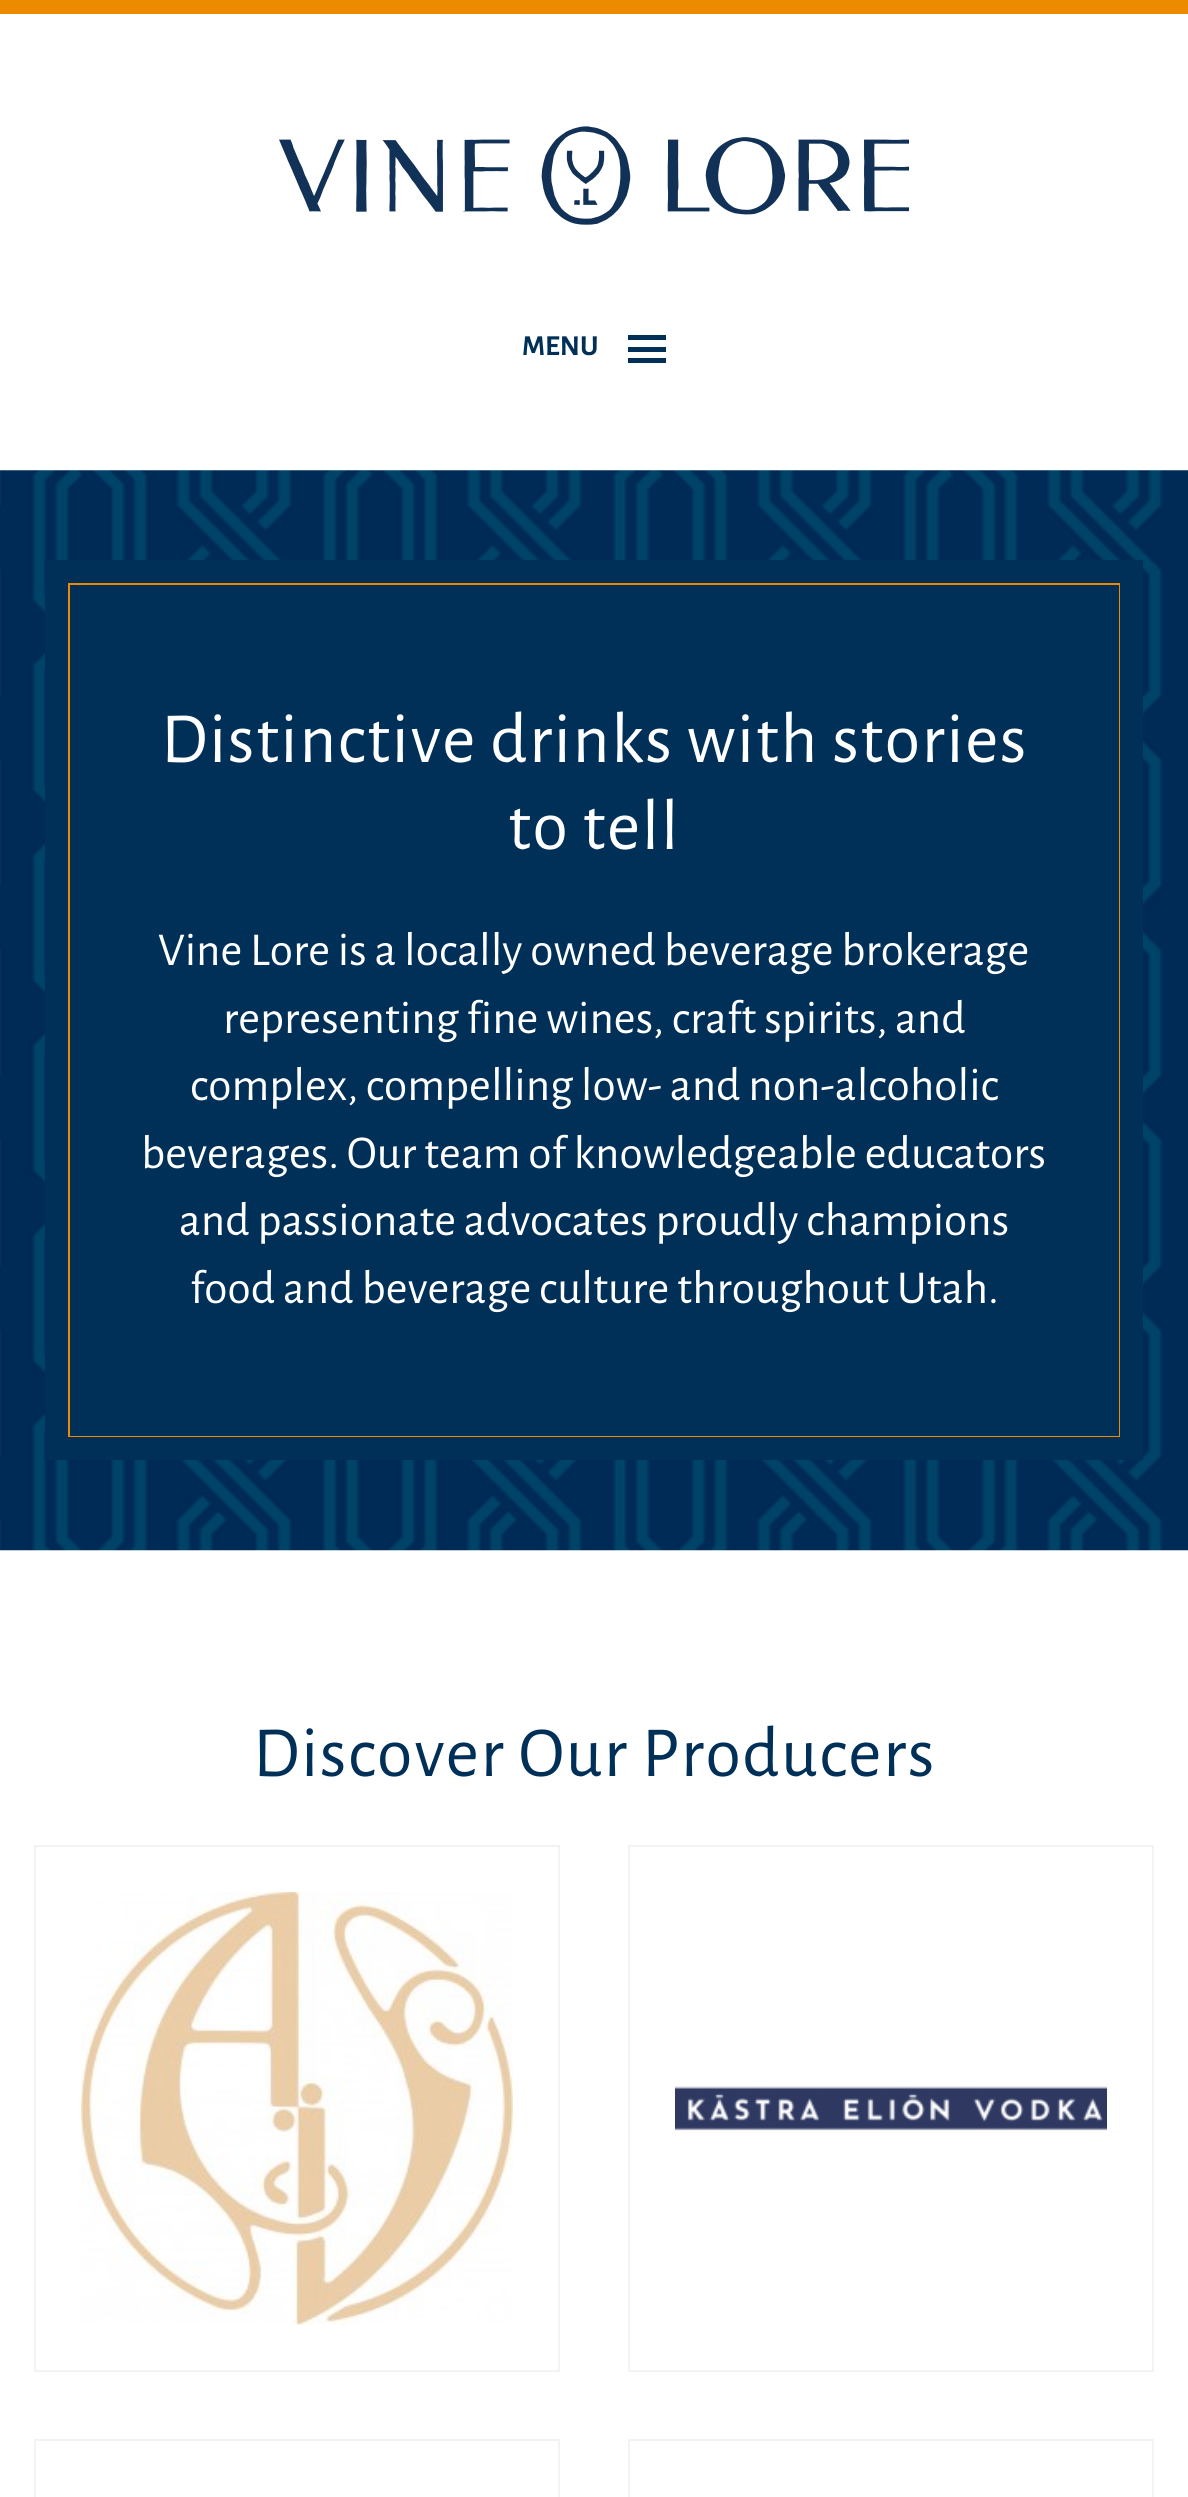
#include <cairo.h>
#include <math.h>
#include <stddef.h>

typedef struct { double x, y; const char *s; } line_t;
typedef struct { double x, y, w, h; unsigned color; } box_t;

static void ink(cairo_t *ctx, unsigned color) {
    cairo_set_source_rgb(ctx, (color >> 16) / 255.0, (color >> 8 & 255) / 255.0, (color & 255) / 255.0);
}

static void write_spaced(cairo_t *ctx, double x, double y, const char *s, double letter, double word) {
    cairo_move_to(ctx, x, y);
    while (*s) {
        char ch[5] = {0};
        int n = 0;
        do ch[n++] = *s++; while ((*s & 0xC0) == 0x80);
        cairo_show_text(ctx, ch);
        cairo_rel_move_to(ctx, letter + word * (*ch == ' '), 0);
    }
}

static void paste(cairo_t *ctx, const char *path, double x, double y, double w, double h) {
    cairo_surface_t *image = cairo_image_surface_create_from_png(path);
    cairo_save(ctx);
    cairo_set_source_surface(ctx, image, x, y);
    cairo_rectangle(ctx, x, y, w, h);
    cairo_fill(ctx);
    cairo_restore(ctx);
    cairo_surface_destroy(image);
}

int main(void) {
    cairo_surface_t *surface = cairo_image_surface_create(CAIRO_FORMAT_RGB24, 1188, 2497);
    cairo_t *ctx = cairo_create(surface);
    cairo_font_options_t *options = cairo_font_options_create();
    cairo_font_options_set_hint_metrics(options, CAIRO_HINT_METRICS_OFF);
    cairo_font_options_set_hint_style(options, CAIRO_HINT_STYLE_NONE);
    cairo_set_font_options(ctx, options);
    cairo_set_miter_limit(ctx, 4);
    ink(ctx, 0xFFFFFF);
    cairo_paint(ctx);
    ink(ctx, 0xED8B00);
    cairo_rectangle(ctx, 0, 0, 1188, 14);
    cairo_fill(ctx);
    paste(ctx, "media/1.png", 279, 126, 630, 99);
    cairo_select_font_face(ctx, "Alegreya Sans", CAIRO_FONT_SLANT_NORMAL, CAIRO_FONT_WEIGHT_BOLD);
    cairo_set_font_size(ctx, 29);
    ink(ctx, 0x003057);
    cairo_move_to(ctx, 522, 355);
    cairo_show_text(ctx, "MENU");
    {
        static const box_t items[] = {
            {628, 335, 38, 5, 0x003057},
            {628, 347, 38, 5, 0x003057},
            {628, 358, 38, 5, 0x003057},
        };
        for (size_t i = 0; i < sizeof items / sizeof *items; i++) {
            ink(ctx, items[i].color);
            cairo_rectangle(ctx, items[i].x, items[i].y, items[i].w, items[i].h);
            cairo_fill(ctx);
        }
    }
    paste(ctx, "media/2.png", 0, 470, 1188, 1081);
    cairo_rectangle(ctx, 69, 584, 1051, 853);
    cairo_fill_preserve(ctx);
    ink(ctx, 0xED8B00);
    cairo_stroke(ctx);
    cairo_rectangle(ctx, 56.5, 571.5, 1075, 877);
    ink(ctx, 0x003057);
    cairo_set_line_width(ctx, 23);
    cairo_stroke(ctx);
    cairo_select_font_face(ctx, "Alegreya Sans", CAIRO_FONT_SLANT_NORMAL, CAIRO_FONT_WEIGHT_NORMAL);
    cairo_set_font_size(ctx, 72);
    ink(ctx, 0xFFFFFF);
    write_spaced(ctx, 161, 762, "Distinctive drinks with stories", 1.45, 0);
    write_spaced(ctx, 508, 849, "to tell", 1.45, 0);
    cairo_set_font_size(ctx, 47.25);
    {
        static const line_t items[] = {
            {158, 965, "Vine Lore is a locally owned beverage brokerage"},
            {223, 1033, "representing fine wines, craft spirits, and"},
            {190, 1100, "complex, compelling low- and non-alcoholic"},
            {141, 1168, "beverages. Our team of knowledgeable educators"},
            {179, 1235, "and passionate advocates proudly champions"},
            {190, 1303, "food and beverage culture throughout Utah."},
        };
        for (size_t i = 0; i < sizeof items / sizeof *items; i++) {
            cairo_move_to(ctx, items[i].x, items[i].y);
            cairo_show_text(ctx, items[i].s);
        }
    }
    cairo_set_font_size(ctx, 72);
    ink(ctx, 0x003057);
    write_spaced(ctx, 253, 1776, "Discover Our Producers", 1.45, 0);
    cairo_rectangle(ctx, 35, 1846, 524, 525);
    ink(ctx, 0xF3F3F3);
    cairo_set_line_width(ctx, 2);
    cairo_stroke(ctx);
    paste(ctx, "media/3.png", 81, 1892, 432, 433);
    cairo_rectangle(ctx, 629, 1846, 524, 525);
    cairo_stroke(ctx);
    paste(ctx, "media/4.png", 675, 2086, 432, 45);
    cairo_rectangle(ctx, 35, 2440, 524, 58);
    cairo_stroke(ctx);
    cairo_rectangle(ctx, 629, 2440, 524, 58);
    cairo_stroke(ctx);
    cairo_surface_write_to_png(surface, "image.png");
    cairo_font_options_destroy(options);
    cairo_destroy(ctx);
    cairo_surface_destroy(surface);
    return 0;
}
